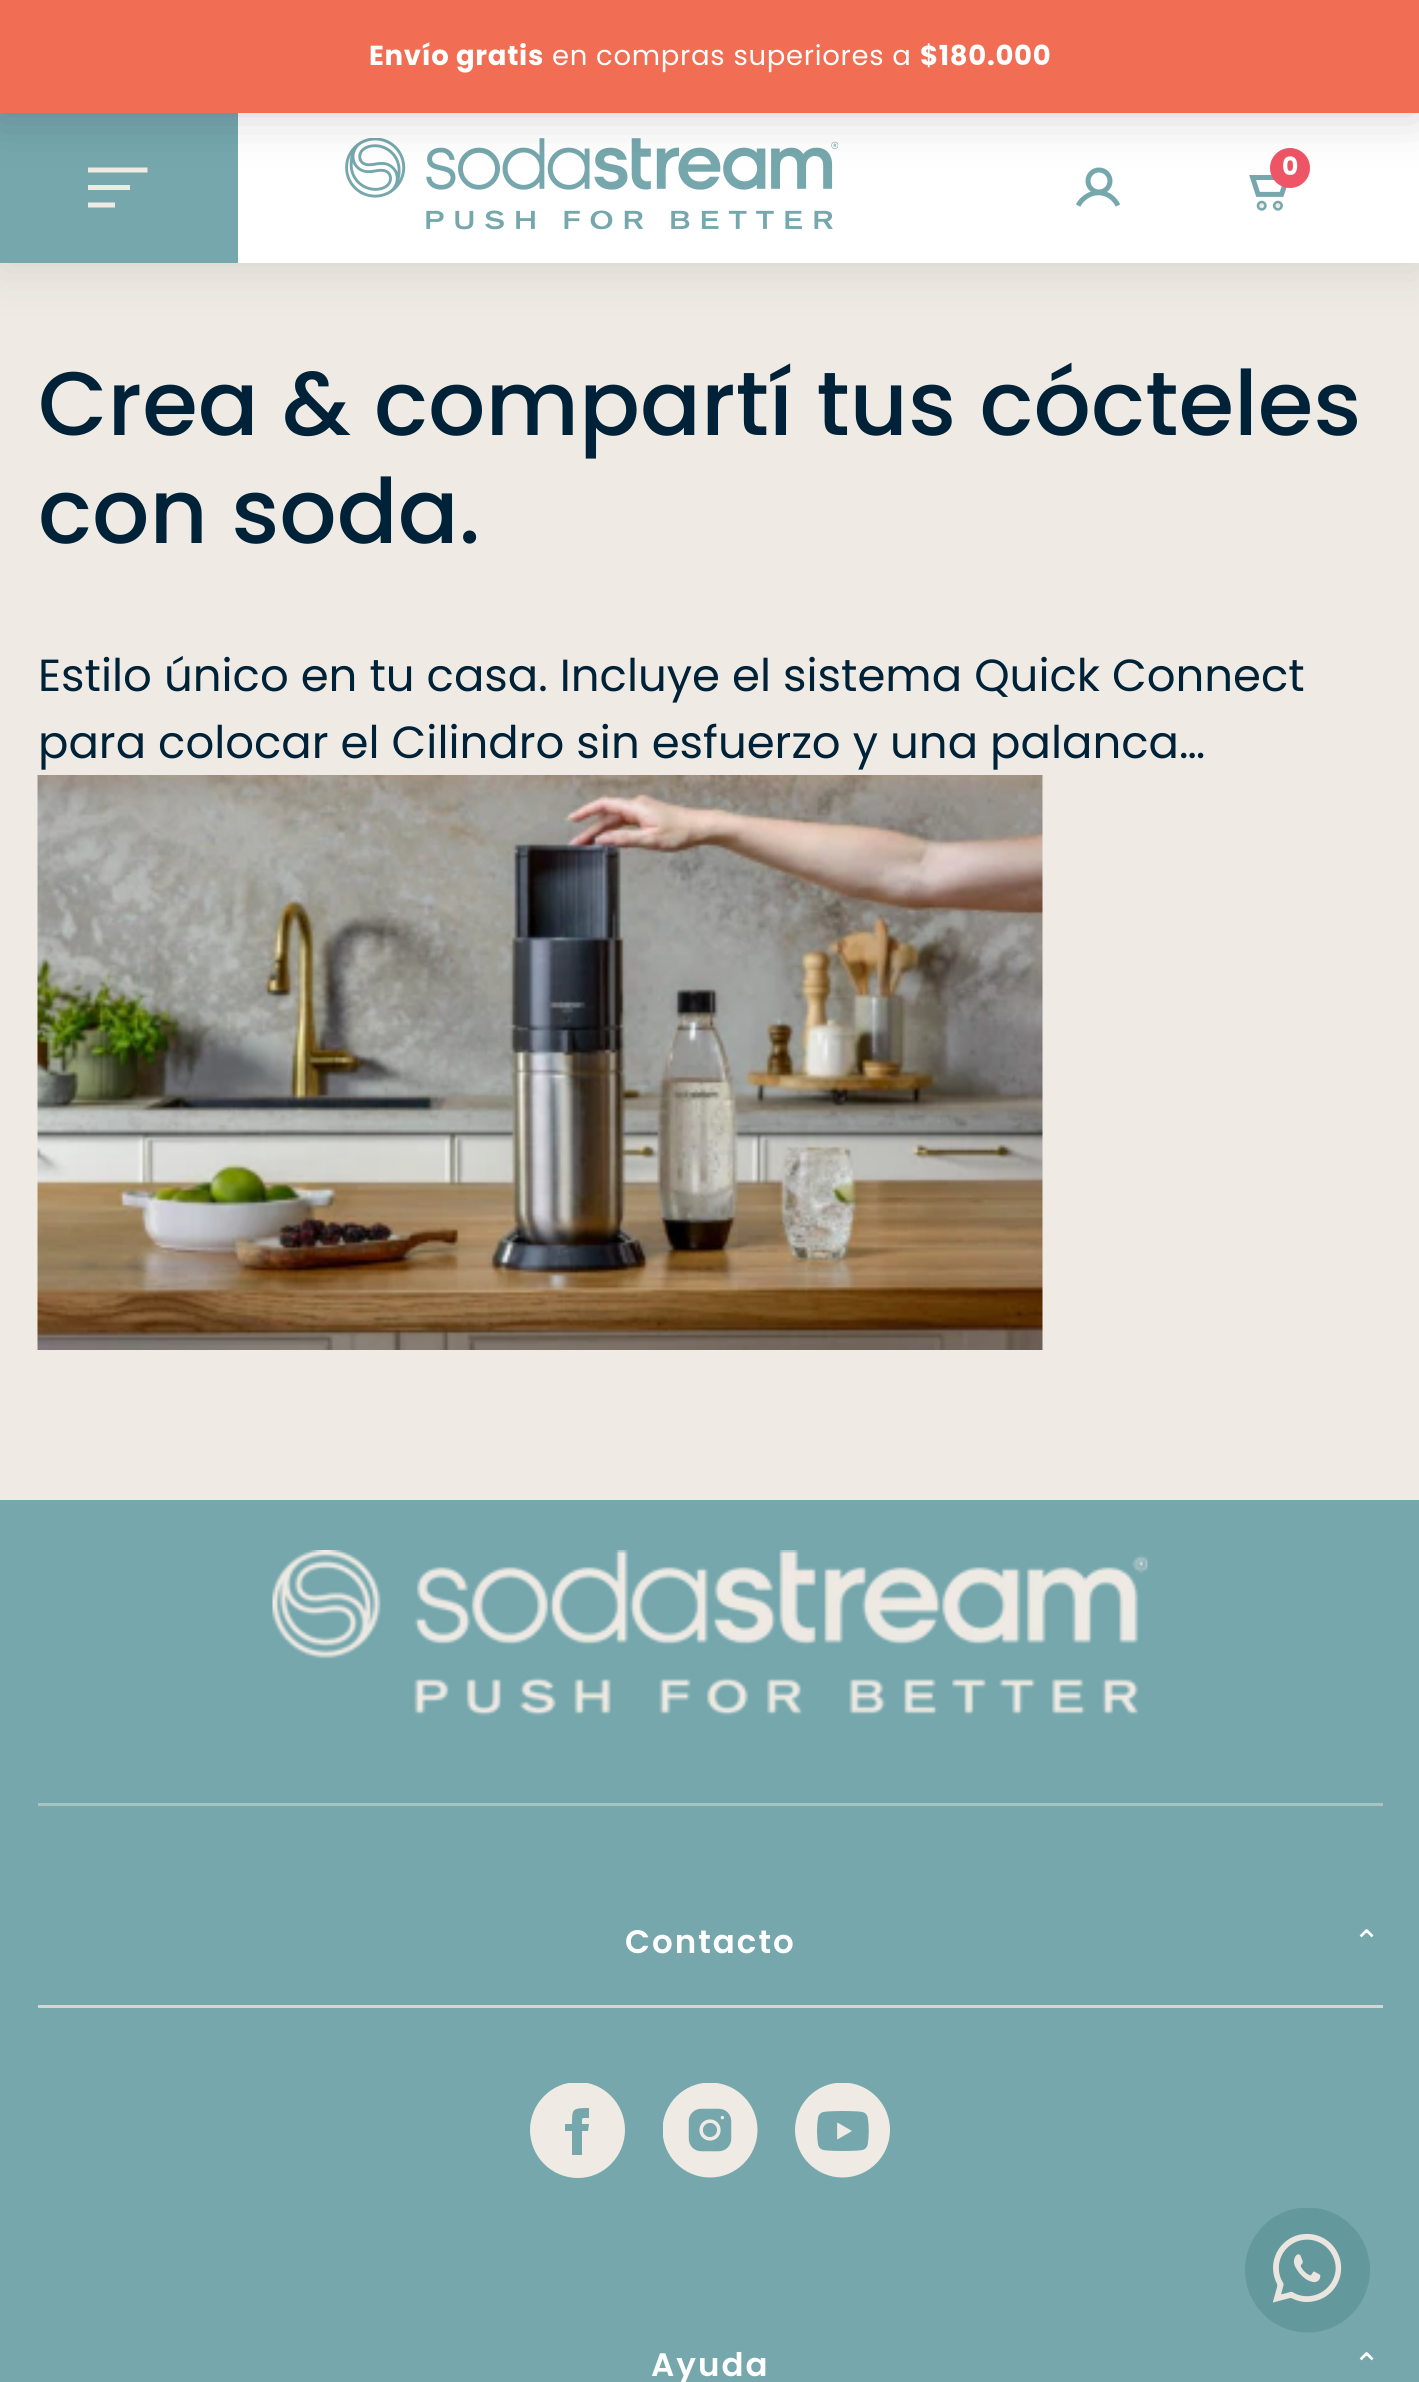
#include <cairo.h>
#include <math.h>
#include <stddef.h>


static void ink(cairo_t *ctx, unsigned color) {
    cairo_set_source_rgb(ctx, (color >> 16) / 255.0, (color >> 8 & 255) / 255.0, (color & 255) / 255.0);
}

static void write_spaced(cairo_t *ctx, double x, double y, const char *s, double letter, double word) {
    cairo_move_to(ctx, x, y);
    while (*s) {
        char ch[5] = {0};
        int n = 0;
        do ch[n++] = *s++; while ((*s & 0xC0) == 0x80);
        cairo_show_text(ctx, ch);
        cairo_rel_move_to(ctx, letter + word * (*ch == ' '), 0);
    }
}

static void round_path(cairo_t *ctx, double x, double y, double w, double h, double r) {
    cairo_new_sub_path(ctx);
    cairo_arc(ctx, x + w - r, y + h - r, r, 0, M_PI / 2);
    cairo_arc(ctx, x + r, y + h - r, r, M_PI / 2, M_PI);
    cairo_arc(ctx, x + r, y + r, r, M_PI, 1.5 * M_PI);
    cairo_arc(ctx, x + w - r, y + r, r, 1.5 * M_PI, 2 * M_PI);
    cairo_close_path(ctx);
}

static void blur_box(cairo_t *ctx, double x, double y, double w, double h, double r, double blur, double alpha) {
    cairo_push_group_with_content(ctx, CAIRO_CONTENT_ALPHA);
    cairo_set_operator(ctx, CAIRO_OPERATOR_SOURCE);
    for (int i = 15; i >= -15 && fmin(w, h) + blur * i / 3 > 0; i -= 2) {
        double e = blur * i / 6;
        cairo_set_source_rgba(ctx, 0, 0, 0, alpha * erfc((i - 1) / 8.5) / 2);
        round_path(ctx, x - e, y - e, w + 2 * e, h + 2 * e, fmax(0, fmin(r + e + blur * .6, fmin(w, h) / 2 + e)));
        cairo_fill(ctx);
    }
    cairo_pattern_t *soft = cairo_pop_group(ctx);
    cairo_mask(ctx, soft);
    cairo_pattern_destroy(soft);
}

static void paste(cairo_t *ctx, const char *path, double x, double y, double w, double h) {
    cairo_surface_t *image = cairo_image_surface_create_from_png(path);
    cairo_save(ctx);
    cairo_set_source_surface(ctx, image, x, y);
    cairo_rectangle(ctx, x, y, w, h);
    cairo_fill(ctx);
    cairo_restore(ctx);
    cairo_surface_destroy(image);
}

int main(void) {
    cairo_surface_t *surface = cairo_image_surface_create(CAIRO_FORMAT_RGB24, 1419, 2382);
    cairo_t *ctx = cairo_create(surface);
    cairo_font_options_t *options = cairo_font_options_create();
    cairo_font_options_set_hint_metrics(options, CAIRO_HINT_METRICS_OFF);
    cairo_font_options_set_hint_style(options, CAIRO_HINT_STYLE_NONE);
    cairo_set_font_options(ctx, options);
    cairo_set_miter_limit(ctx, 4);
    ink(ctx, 0xEFEBE4);
    cairo_paint(ctx);
    ink(ctx, 0x525353);
    blur_box(ctx, 0, 120, 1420, 150, 0, 25, 0.15);
    ink(ctx, 0xFFFFFF);
    cairo_rectangle(ctx, 238, 113, 1181, 150);
    cairo_fill(ctx);
    ink(ctx, 0x75A7AD);
    cairo_rectangle(ctx, 0, 113, 238, 150);
    cairo_fill(ctx);
    cairo_save(ctx);
    cairo_rectangle(ctx, 88, 158, 60, 60);
    cairo_clip(ctx);
    cairo_new_path(ctx);
    cairo_move_to(ctx, 87.5, 170);
    cairo_line_to(ctx, 147.5, 170);
    ink(ctx, 0xEFEBE4);
    cairo_set_line_width(ctx, 5);
    cairo_stroke(ctx);
    cairo_restore(ctx);
    ink(ctx, 0xEFEBE4);
    cairo_rectangle(ctx, 88, 185, 42, 5);
    cairo_fill(ctx);
    paste(ctx, "media/1.png", 345, 138, 493, 92);
    cairo_arc(ctx, 1099, 181, 11, 0, 2 * M_PI);
    ink(ctx, 0x75A7AD);
    cairo_set_line_width(ctx, 5);
    cairo_stroke(ctx);
    cairo_new_path(ctx);
    cairo_move_to(ctx, 1078, 205.5);
    cairo_curve_to(ctx, 1087.5, 189, 1109, 188, 1118, 205.5);
    cairo_stroke(ctx);
    paste(ctx, "media/2.png", 1249, 175, 38, 36);
    ink(ctx, 0xEE5566);
    cairo_arc(ctx, 1290, 168, 20, 0, 2 * M_PI);
    cairo_fill(ctx);
    ink(ctx, 0x000000);
    blur_box(ctx, 0, 0, 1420, 113, 0, 26, 0.2);
    ink(ctx, 0xF16D53);
    cairo_rectangle(ctx, 0, 0, 1419, 113);
    cairo_fill(ctx);
    cairo_select_font_face(ctx, "Poppins", CAIRO_FONT_SLANT_NORMAL, CAIRO_FONT_WEIGHT_BOLD);
    cairo_set_font_size(ctx, 27.5);
    ink(ctx, 0xFFFFFF);
    write_spaced(ctx, 369, 65, "Envío gratis", 0.7, 0);
    cairo_select_font_face(ctx, "Poppins", CAIRO_FONT_SLANT_NORMAL, CAIRO_FONT_WEIGHT_NORMAL);
    write_spaced(ctx, 552, 65, "en compras superiores a", 0.7, 0);
    cairo_select_font_face(ctx, "Poppins", CAIRO_FONT_SLANT_NORMAL, CAIRO_FONT_WEIGHT_BOLD);
    write_spaced(ctx, 920, 65, "$180.000", 0.7, 0);
    cairo_save(ctx);
    cairo_rectangle(ctx, 88, 158, 60, 60);
    cairo_clip(ctx);
    cairo_new_path(ctx);
    cairo_move_to(ctx, 87.5, 205);
    cairo_line_to(ctx, 115, 205);
    ink(ctx, 0xEFEBE4);
    cairo_stroke(ctx);
    cairo_restore(ctx);
    cairo_set_font_size(ctx, 25);
    cairo_move_to(ctx, 1282, 175);
    cairo_show_text(ctx, "0");
    cairo_select_font_face(ctx, "Poppins Medium", CAIRO_FONT_SLANT_NORMAL, CAIRO_FONT_WEIGHT_NORMAL);
    cairo_set_font_size(ctx, 90);
    ink(ctx, 0x002238);
    cairo_move_to(ctx, 38, 435);
    cairo_show_text(ctx, "Crea & compartí tus cócteles");
    cairo_move_to(ctx, 38, 543);
    cairo_show_text(ctx, "con soda.");
    cairo_select_font_face(ctx, "Poppins", CAIRO_FONT_SLANT_NORMAL, CAIRO_FONT_WEIGHT_NORMAL);
    cairo_set_font_size(ctx, 45);
    cairo_move_to(ctx, 38, 691);
    cairo_show_text(ctx, "Estilo único en tu casa. Incluye el sistema Quick Connect");
    cairo_move_to(ctx, 38, 758);
    cairo_show_text(ctx, "para colocar el Cilindro sin esfuerzo y una palanca…");
    paste(ctx, "media/3.png", 37, 775, 1006, 575);
    ink(ctx, 0x75A7AD);
    cairo_rectangle(ctx, 0, 1500, 1419, 882);
    cairo_fill(ctx);
    paste(ctx, "media/4.png", 272, 1550, 876, 166);
    ink(ctx, 0xADC2C0);
    cairo_rectangle(ctx, 38, 1803, 1345, 3);
    cairo_fill(ctx);
    ink(ctx, 0xD5D5D5);
    cairo_rectangle(ctx, 38, 2005, 1345, 3);
    cairo_fill(ctx);
    cairo_select_font_face(ctx, "Poppins SemiBold", CAIRO_FONT_SLANT_NORMAL, CAIRO_FONT_WEIGHT_NORMAL);
    cairo_set_font_size(ctx, 32.5);
    ink(ctx, 0xFFFFFF);
    write_spaced(ctx, 625, 1953, "Contacto", 2, 0);
    cairo_select_font_face(ctx, "DejaVu Sans", CAIRO_FONT_SLANT_NORMAL, CAIRO_FONT_WEIGHT_NORMAL);
    write_spaced(ctx, 1353, 1953, "⌃", 2, 0);
    cairo_save(ctx);
    cairo_rectangle(ctx, 530, 2083, 95, 95);
    cairo_clip(ctx);
    ink(ctx, 0xEFEBE4);
    cairo_new_path(ctx);
    cairo_move_to(ctx, 578, 2082);
    cairo_curve_to(ctx, 604, 2082, 625, 2104, 625, 2130);
    cairo_curve_to(ctx, 625, 2156, 604, 2178, 578, 2178);
    cairo_curve_to(ctx, 551, 2178, 530, 2156, 530, 2130);
    cairo_curve_to(ctx, 530, 2104, 551, 2082, 578, 2082);
    cairo_close_path(ctx);
    cairo_fill(ctx);
    cairo_restore(ctx);
    ink(ctx, 0x75A7AD);
    cairo_new_path(ctx);
    cairo_move_to(ctx, 589, 2118);
    cairo_curve_to(ctx, 581, 2118, 582, 2117, 582, 2124);
    cairo_line_to(ctx, 589, 2124);
    cairo_line_to(ctx, 588, 2131);
    cairo_line_to(ctx, 582, 2131);
    cairo_line_to(ctx, 582, 2155);
    cairo_line_to(ctx, 572, 2155);
    cairo_line_to(ctx, 572, 2131);
    cairo_line_to(ctx, 565, 2131);
    cairo_line_to(ctx, 565, 2124);
    cairo_line_to(ctx, 572, 2124);
    cairo_curve_to(ctx, 572, 2109, 572, 2108, 589, 2108);
    cairo_close_path(ctx);
    cairo_fill(ctx);
    paste(ctx, "media/5.png", 663, 2083, 95, 95);
    paste(ctx, "media/6.png", 795, 2083, 95, 95);
    cairo_select_font_face(ctx, "Poppins SemiBold", CAIRO_FONT_SLANT_NORMAL, CAIRO_FONT_WEIGHT_NORMAL);
    ink(ctx, 0xFFFFFF);
    write_spaced(ctx, 651, 2376, "Ayuda", 2, 0);
    cairo_select_font_face(ctx, "DejaVu Sans", CAIRO_FONT_SLANT_NORMAL, CAIRO_FONT_WEIGHT_NORMAL);
    write_spaced(ctx, 1353, 2376, "⌃", 2, 0);
    paste(ctx, "media/7.png", 1245, 2208, 125, 125);
    cairo_surface_write_to_png(surface, "image.png");
    cairo_font_options_destroy(options);
    cairo_destroy(ctx);
    cairo_surface_destroy(surface);
    return 0;
}
